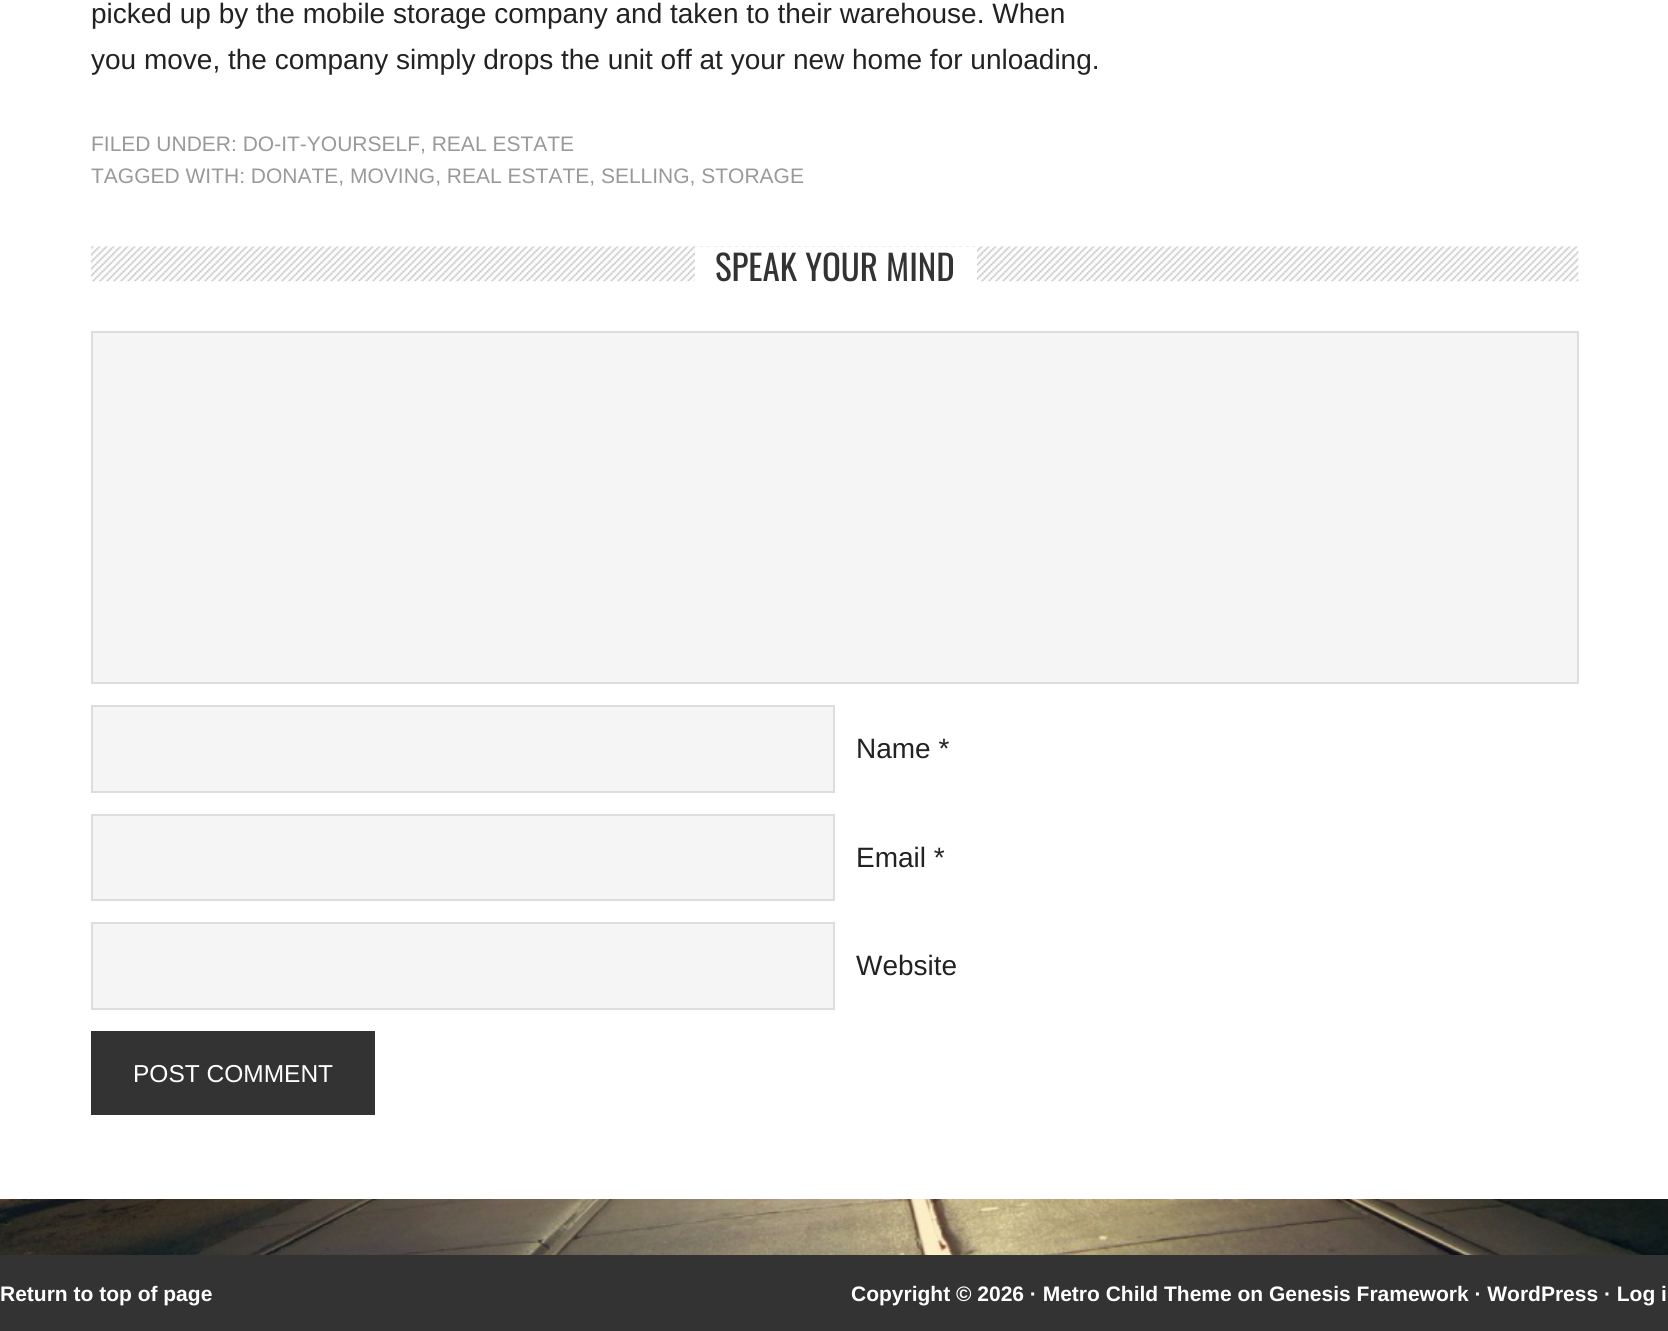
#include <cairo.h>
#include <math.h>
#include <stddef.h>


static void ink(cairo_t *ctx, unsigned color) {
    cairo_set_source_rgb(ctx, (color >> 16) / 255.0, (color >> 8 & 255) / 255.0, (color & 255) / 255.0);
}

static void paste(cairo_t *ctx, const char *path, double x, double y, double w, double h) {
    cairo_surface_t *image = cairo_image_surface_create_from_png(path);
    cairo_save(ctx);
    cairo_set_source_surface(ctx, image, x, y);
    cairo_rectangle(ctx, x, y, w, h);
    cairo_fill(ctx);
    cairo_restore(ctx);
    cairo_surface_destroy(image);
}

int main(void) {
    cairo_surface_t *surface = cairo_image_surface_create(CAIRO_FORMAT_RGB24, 1668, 1331);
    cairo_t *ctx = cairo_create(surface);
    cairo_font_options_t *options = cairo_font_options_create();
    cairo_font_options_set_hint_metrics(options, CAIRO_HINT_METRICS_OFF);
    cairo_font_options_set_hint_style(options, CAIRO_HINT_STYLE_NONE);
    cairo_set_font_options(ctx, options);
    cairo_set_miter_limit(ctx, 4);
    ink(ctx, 0xFFFFFF);
    cairo_paint(ctx);
    cairo_select_font_face(ctx, "Liberation Sans", CAIRO_FONT_SLANT_NORMAL, CAIRO_FONT_WEIGHT_NORMAL);
    cairo_set_font_size(ctx, 28);
    ink(ctx, 0x222222);
    cairo_move_to(ctx, 91, 23);
    cairo_show_text(ctx, "picked up by the mobile storage company and taken to their warehouse. When");
    cairo_move_to(ctx, 91, 69);
    cairo_show_text(ctx, "you move, the company simply drops the unit off at your new home for unloading.");
    cairo_set_font_size(ctx, 21);
    ink(ctx, 0x999999);
    cairo_move_to(ctx, 91, 151);
    cairo_show_text(ctx, "FILED UNDER: DO-IT-YOURSELF, REAL ESTATE");
    cairo_move_to(ctx, 91, 183);
    cairo_show_text(ctx, "TAGGED WITH: DONATE, MOVING, REAL ESTATE, SELLING, STORAGE");
    paste(ctx, "media/1.png", 91, 246, 1488, 36);
    ink(ctx, 0xFFFFFF);
    cairo_rectangle(ctx, 695, 247, 282, 35);
    cairo_fill(ctx);
    cairo_select_font_face(ctx, "Oswald", CAIRO_FONT_SLANT_NORMAL, CAIRO_FONT_WEIGHT_NORMAL);
    cairo_set_font_size(ctx, 35);
    ink(ctx, 0x333333);
    cairo_move_to(ctx, 715, 281);
    cairo_show_text(ctx, "SPEAK YOUR MIND");
    ink(ctx, 0xF5F5F5);
    cairo_rectangle(ctx, 92, 332, 1486, 351);
    cairo_fill_preserve(ctx);
    ink(ctx, 0xDDDDDD);
    cairo_stroke(ctx);
    ink(ctx, 0xF5F5F5);
    cairo_rectangle(ctx, 92, 706, 742, 86);
    cairo_fill_preserve(ctx);
    ink(ctx, 0xDDDDDD);
    cairo_stroke(ctx);
    cairo_select_font_face(ctx, "Liberation Sans", CAIRO_FONT_SLANT_NORMAL, CAIRO_FONT_WEIGHT_NORMAL);
    cairo_set_font_size(ctx, 28);
    ink(ctx, 0x222222);
    cairo_move_to(ctx, 856, 758);
    cairo_show_text(ctx, "Name *");
    ink(ctx, 0xF5F5F5);
    cairo_rectangle(ctx, 92, 815, 742, 85);
    cairo_fill_preserve(ctx);
    ink(ctx, 0xDDDDDD);
    cairo_stroke(ctx);
    ink(ctx, 0x222222);
    cairo_move_to(ctx, 856, 867);
    cairo_show_text(ctx, "Email *");
    ink(ctx, 0xF5F5F5);
    cairo_rectangle(ctx, 92, 923, 742, 86);
    cairo_fill_preserve(ctx);
    ink(ctx, 0xDDDDDD);
    cairo_stroke(ctx);
    ink(ctx, 0x222222);
    cairo_move_to(ctx, 856, 975);
    cairo_show_text(ctx, "Website");
    ink(ctx, 0x333333);
    cairo_rectangle(ctx, 91, 1031, 284, 84);
    cairo_fill(ctx);
    cairo_set_font_size(ctx, 24.5);
    ink(ctx, 0xFFFFFF);
    cairo_move_to(ctx, 133, 1082);
    cairo_show_text(ctx, "POST COMMENT");
    paste(ctx, "media/2.png", 0, 1199, 1668, 56);
    ink(ctx, 0x333333);
    cairo_rectangle(ctx, 0, 1255, 1668, 76);
    cairo_fill(ctx);
    cairo_select_font_face(ctx, "Liberation Sans", CAIRO_FONT_SLANT_NORMAL, CAIRO_FONT_WEIGHT_BOLD);
    cairo_set_font_size(ctx, 21);
    ink(ctx, 0xFFFFFF);
    cairo_move_to(ctx, 0, 1301);
    cairo_show_text(ctx, "Return to top of page");
    cairo_move_to(ctx, 851, 1301);
    cairo_show_text(ctx, "Copyright © 2026 · Metro Child Theme on Genesis Framework · WordPress · Log i");
    cairo_surface_write_to_png(surface, "image.png");
    cairo_font_options_destroy(options);
    cairo_destroy(ctx);
    cairo_surface_destroy(surface);
    return 0;
}
